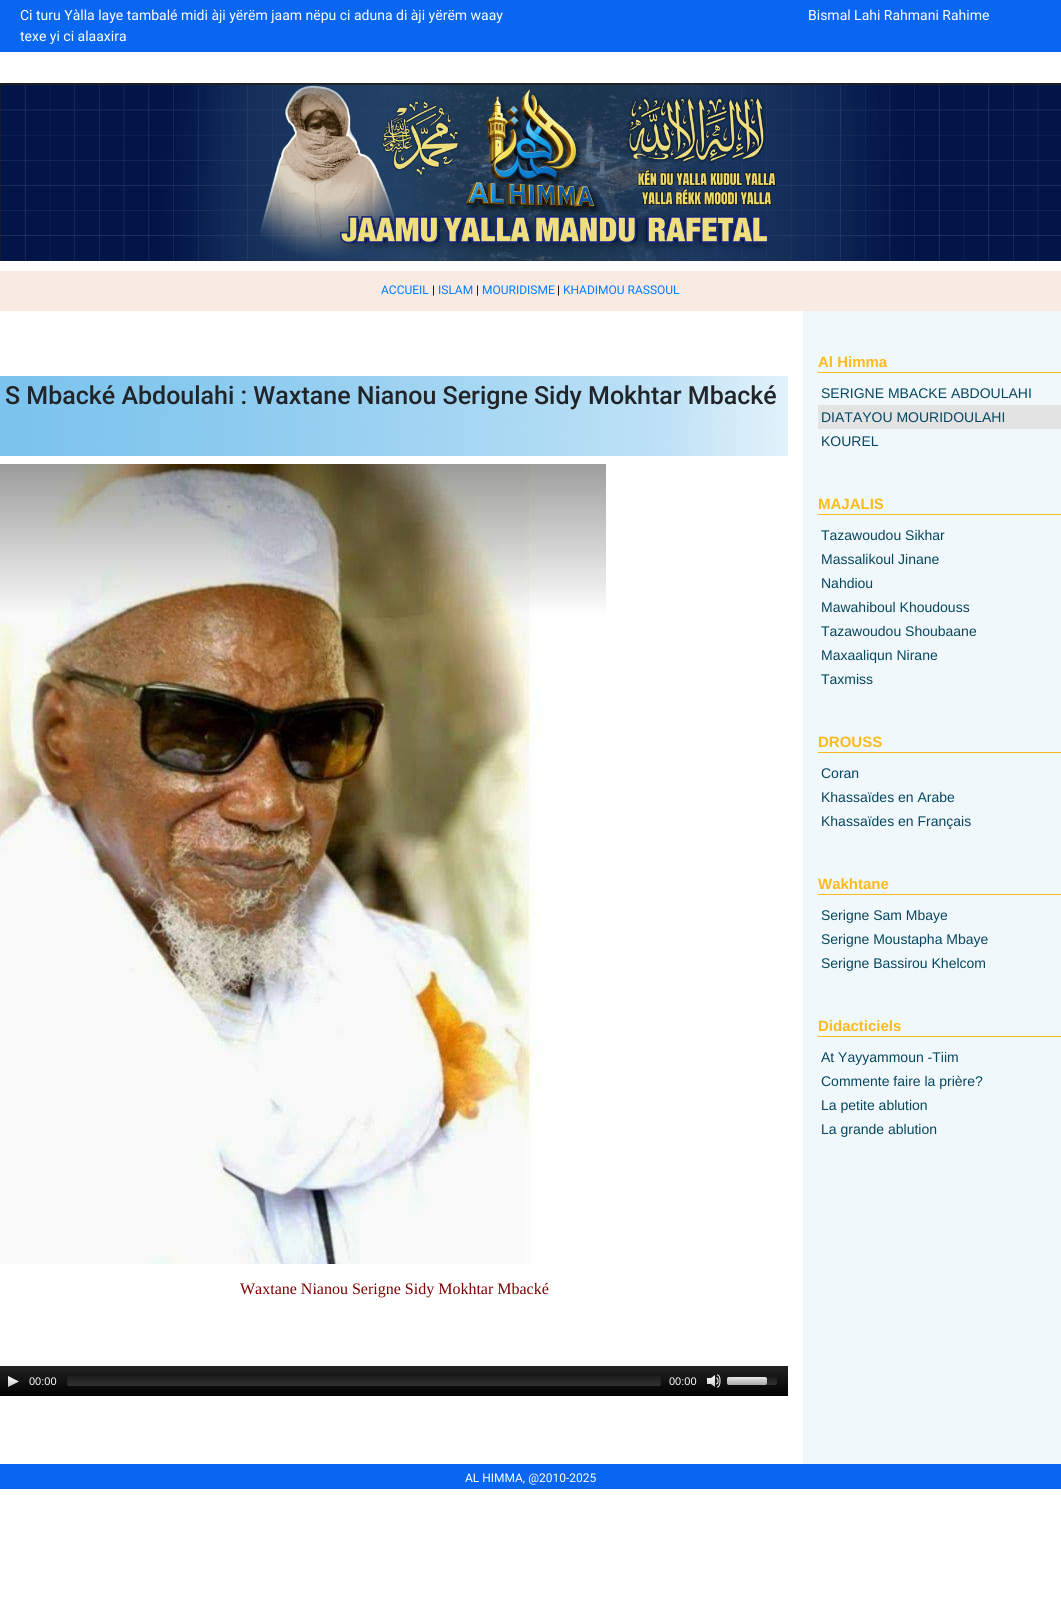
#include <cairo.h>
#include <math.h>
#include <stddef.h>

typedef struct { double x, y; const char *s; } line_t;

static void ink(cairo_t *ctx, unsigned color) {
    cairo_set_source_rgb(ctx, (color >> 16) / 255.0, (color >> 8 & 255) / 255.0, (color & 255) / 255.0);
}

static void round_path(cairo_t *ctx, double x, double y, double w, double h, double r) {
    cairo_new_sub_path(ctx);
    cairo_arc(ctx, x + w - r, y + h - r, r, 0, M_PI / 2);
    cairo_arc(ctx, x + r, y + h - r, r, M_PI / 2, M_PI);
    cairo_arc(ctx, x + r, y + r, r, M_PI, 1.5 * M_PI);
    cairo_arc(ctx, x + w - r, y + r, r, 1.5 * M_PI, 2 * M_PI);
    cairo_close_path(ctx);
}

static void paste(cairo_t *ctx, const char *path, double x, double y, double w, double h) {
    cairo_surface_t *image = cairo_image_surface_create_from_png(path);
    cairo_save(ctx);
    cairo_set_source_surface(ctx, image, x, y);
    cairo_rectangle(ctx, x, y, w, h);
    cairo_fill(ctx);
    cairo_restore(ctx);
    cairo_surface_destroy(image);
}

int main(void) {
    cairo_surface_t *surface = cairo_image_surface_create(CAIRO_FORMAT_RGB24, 1061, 1615);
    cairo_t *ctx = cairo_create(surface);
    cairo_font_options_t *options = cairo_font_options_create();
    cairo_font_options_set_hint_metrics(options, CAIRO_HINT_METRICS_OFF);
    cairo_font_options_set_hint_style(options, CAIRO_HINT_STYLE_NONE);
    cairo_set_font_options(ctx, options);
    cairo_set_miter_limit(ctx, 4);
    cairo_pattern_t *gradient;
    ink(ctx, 0xFFFFFF);
    cairo_paint(ctx);
    ink(ctx, 0x0966F1);
    cairo_rectangle(ctx, 0, 0, 1061, 52);
    cairo_fill(ctx);
    cairo_select_font_face(ctx, "Roboto", CAIRO_FONT_SLANT_NORMAL, CAIRO_FONT_WEIGHT_NORMAL);
    cairo_set_font_size(ctx, 14);
    ink(ctx, 0xFFFFFF);
    {
        static const line_t items[] = {
            {20, 20, "Ci turu Yàlla laye tambalé midi àji yërëm jaam nëpu ci aduna di àji yërëm waay"},
            {20, 41, "texe yi ci alaaxira"},
            {808, 20, "Bismal Lahi Rahmani Rahime"},
        };
        for (size_t i = 0; i < sizeof items / sizeof *items; i++) {
            cairo_move_to(ctx, items[i].x, items[i].y);
            cairo_show_text(ctx, items[i].s);
        }
    }
    paste(ctx, "media/1.png", 0, 83, 1061, 178);
    ink(ctx, 0xF9EAE4);
    cairo_rectangle(ctx, 0, 271, 1061, 40);
    cairo_fill(ctx);
    cairo_set_font_size(ctx, 12);
    ink(ctx, 0x007BFF);
    cairo_move_to(ctx, 381, 294);
    cairo_show_text(ctx, "ACCUEIL");
    ink(ctx, 0x000000);
    cairo_move_to(ctx, 432, 294);
    cairo_show_text(ctx, "|");
    ink(ctx, 0x007BFF);
    cairo_move_to(ctx, 438, 294);
    cairo_show_text(ctx, "ISLAM");
    ink(ctx, 0x000000);
    cairo_move_to(ctx, 476, 294);
    cairo_show_text(ctx, "|");
    ink(ctx, 0x007BFF);
    cairo_move_to(ctx, 482, 294);
    cairo_show_text(ctx, "MOURIDISME");
    ink(ctx, 0x000000);
    cairo_move_to(ctx, 557, 294);
    cairo_show_text(ctx, "|");
    ink(ctx, 0x007BFF);
    cairo_move_to(ctx, 563, 294);
    cairo_show_text(ctx, "KHADIMOU RASSOUL");
    paste(ctx, "media/2.png", 0, 376, 788, 80);
    cairo_select_font_face(ctx, "Roboto Medium", CAIRO_FONT_SLANT_NORMAL, CAIRO_FONT_WEIGHT_NORMAL);
    cairo_set_font_size(ctx, 25);
    ink(ctx, 0x212529);
    cairo_move_to(ctx, 5, 404);
    cairo_show_text(ctx, "S Mbacké Abdoulahi : Waxtane Nianou Serigne Sidy Mokhtar Mbacké");
    paste(ctx, "media/3.png", 0, 464, 606, 800);
    cairo_select_font_face(ctx, "Liberation Serif", CAIRO_FONT_SLANT_NORMAL, CAIRO_FONT_WEIGHT_NORMAL);
    cairo_set_font_size(ctx, 16);
    ink(ctx, 0x800000);
    cairo_move_to(ctx, 240, 1294);
    cairo_show_text(ctx, "Waxtane Nianou Serigne Sidy Mokhtar Mbacké");
    gradient = cairo_pattern_create_linear(394, 1366, 394, 1396);
    cairo_pattern_add_color_stop_rgba(gradient, 0, 0.137, 0.137, 0.137, 1);
    cairo_pattern_add_color_stop_rgba(gradient, 1, 0, 0, 0, 1);
    cairo_set_source(ctx, gradient);
    cairo_pattern_destroy(gradient);
    cairo_rectangle(ctx, 0, 1366, 788, 30);
    cairo_fill(ctx);
    paste(ctx, "media/4.png", 8, 1376, 11, 11);
    cairo_select_font_face(ctx, "Liberation Sans", CAIRO_FONT_SLANT_NORMAL, CAIRO_FONT_WEIGHT_NORMAL);
    cairo_set_font_size(ctx, 11);
    ink(ctx, 0xFFFFFF);
    cairo_move_to(ctx, 29, 1385);
    cairo_show_text(ctx, "00:00");
    gradient = cairo_pattern_create_linear(364, 1376, 364, 1386);
    cairo_pattern_add_color_stop_rgba(gradient, 0, 0.118, 0.118, 0.118, 0.8);
    cairo_pattern_add_color_stop_rgba(gradient, 1, 0.235, 0.235, 0.235, 0.8);
    cairo_set_source(ctx, gradient);
    cairo_pattern_destroy(gradient);
    round_path(ctx, 67, 1376, 594, 10, 2);
    cairo_fill(ctx);
    ink(ctx, 0xFFFFFF);
    cairo_move_to(ctx, 669, 1385);
    cairo_show_text(ctx, "00:00");
    paste(ctx, "media/5.png", 707, 1374, 14, 14);
    gradient = cairo_pattern_create_linear(752, 1377, 752, 1385);
    cairo_pattern_add_color_stop_rgba(gradient, 0, 0.118, 0.118, 0.118, 0.8);
    cairo_pattern_add_color_stop_rgba(gradient, 1, 0.235, 0.235, 0.235, 0.8);
    cairo_set_source(ctx, gradient);
    cairo_pattern_destroy(gradient);
    round_path(ctx, 727, 1377, 50, 8, 2);
    cairo_fill(ctx);
    gradient = cairo_pattern_create_linear(747, 1377, 747, 1385);
    cairo_pattern_add_color_stop_rgba(gradient, 0, 1, 1, 1, 0.9);
    cairo_pattern_add_color_stop_rgba(gradient, 1, 0.784, 0.784, 0.784, 0.8);
    cairo_set_source(ctx, gradient);
    cairo_pattern_destroy(gradient);
    round_path(ctx, 727, 1377, 40, 8, 2);
    cairo_fill(ctx);
    ink(ctx, 0xF1F8FB);
    cairo_rectangle(ctx, 803, 311, 258, 1153);
    cairo_fill(ctx);
    ink(ctx, 0xFBBA1D);
    cairo_rectangle(ctx, 818, 372, 243, 1);
    cairo_fill(ctx);
    cairo_select_font_face(ctx, "Liberation Sans", CAIRO_FONT_SLANT_NORMAL, CAIRO_FONT_WEIGHT_BOLD);
    cairo_set_font_size(ctx, 15);
    cairo_move_to(ctx, 818, 367);
    cairo_show_text(ctx, "Al Himma");
    cairo_select_font_face(ctx, "Liberation Sans", CAIRO_FONT_SLANT_NORMAL, CAIRO_FONT_WEIGHT_NORMAL);
    cairo_set_font_size(ctx, 14);
    ink(ctx, 0x054660);
    cairo_move_to(ctx, 821, 398);
    cairo_show_text(ctx, "SERIGNE MBACKE ABDOULAHI");
    ink(ctx, 0xE3E3E3);
    cairo_rectangle(ctx, 818, 405, 243, 24);
    cairo_fill(ctx);
    ink(ctx, 0x054660);
    cairo_move_to(ctx, 821, 422);
    cairo_show_text(ctx, "DIATAYOU MOURIDOULAHI");
    cairo_move_to(ctx, 821, 446);
    cairo_show_text(ctx, "KOUREL");
    ink(ctx, 0xFBBA1D);
    cairo_rectangle(ctx, 818, 514, 243, 1);
    cairo_fill(ctx);
    cairo_select_font_face(ctx, "Liberation Sans", CAIRO_FONT_SLANT_NORMAL, CAIRO_FONT_WEIGHT_BOLD);
    cairo_set_font_size(ctx, 15);
    cairo_move_to(ctx, 818, 509);
    cairo_show_text(ctx, "MAJALIS");
    cairo_select_font_face(ctx, "Liberation Sans", CAIRO_FONT_SLANT_NORMAL, CAIRO_FONT_WEIGHT_NORMAL);
    cairo_set_font_size(ctx, 14);
    ink(ctx, 0x054660);
    {
        static const line_t items[] = {
            {821, 540, "Tazawoudou Sikhar"},
            {821, 564, "Massalikoul Jinane"},
            {821, 588, "Nahdiou"},
            {821, 612, "Mawahiboul Khoudouss"},
            {821, 636, "Tazawoudou Shoubaane"},
            {821, 660, "Maxaaliqun Nirane"},
            {821, 684, "Taxmiss"},
        };
        for (size_t i = 0; i < sizeof items / sizeof *items; i++) {
            cairo_move_to(ctx, items[i].x, items[i].y);
            cairo_show_text(ctx, items[i].s);
        }
    }
    ink(ctx, 0xFBBA1D);
    cairo_rectangle(ctx, 818, 752, 243, 1);
    cairo_fill(ctx);
    cairo_select_font_face(ctx, "Liberation Sans", CAIRO_FONT_SLANT_NORMAL, CAIRO_FONT_WEIGHT_BOLD);
    cairo_set_font_size(ctx, 15);
    cairo_move_to(ctx, 818, 747);
    cairo_show_text(ctx, "DROUSS");
    cairo_select_font_face(ctx, "Liberation Sans", CAIRO_FONT_SLANT_NORMAL, CAIRO_FONT_WEIGHT_NORMAL);
    cairo_set_font_size(ctx, 14);
    ink(ctx, 0x054660);
    {
        static const line_t items[] = {
            {821, 778, "Coran"},
            {821, 802, "Khassaïdes en Arabe"},
            {821, 826, "Khassaïdes en Français"},
        };
        for (size_t i = 0; i < sizeof items / sizeof *items; i++) {
            cairo_move_to(ctx, items[i].x, items[i].y);
            cairo_show_text(ctx, items[i].s);
        }
    }
    ink(ctx, 0xFBBA1D);
    cairo_rectangle(ctx, 818, 894, 243, 1);
    cairo_fill(ctx);
    cairo_select_font_face(ctx, "Liberation Sans", CAIRO_FONT_SLANT_NORMAL, CAIRO_FONT_WEIGHT_BOLD);
    cairo_set_font_size(ctx, 15);
    cairo_move_to(ctx, 818, 889);
    cairo_show_text(ctx, "Wakhtane");
    cairo_select_font_face(ctx, "Liberation Sans", CAIRO_FONT_SLANT_NORMAL, CAIRO_FONT_WEIGHT_NORMAL);
    cairo_set_font_size(ctx, 14);
    ink(ctx, 0x054660);
    {
        static const line_t items[] = {
            {821, 920, "Serigne Sam Mbaye"},
            {821, 944, "Serigne Moustapha Mbaye"},
            {821, 968, "Serigne Bassirou Khelcom"},
        };
        for (size_t i = 0; i < sizeof items / sizeof *items; i++) {
            cairo_move_to(ctx, items[i].x, items[i].y);
            cairo_show_text(ctx, items[i].s);
        }
    }
    ink(ctx, 0xFBBA1D);
    cairo_rectangle(ctx, 818, 1036, 243, 1);
    cairo_fill(ctx);
    cairo_select_font_face(ctx, "Liberation Sans", CAIRO_FONT_SLANT_NORMAL, CAIRO_FONT_WEIGHT_BOLD);
    cairo_set_font_size(ctx, 15);
    cairo_move_to(ctx, 818, 1031);
    cairo_show_text(ctx, "Didacticiels");
    cairo_select_font_face(ctx, "Liberation Sans", CAIRO_FONT_SLANT_NORMAL, CAIRO_FONT_WEIGHT_NORMAL);
    cairo_set_font_size(ctx, 14);
    ink(ctx, 0x054660);
    {
        static const line_t items[] = {
            {821, 1062, "At Yayyammoun -Tiim"},
            {821, 1086, "Commente faire la prière?"},
            {821, 1110, "La petite ablution"},
            {821, 1134, "La grande ablution"},
        };
        for (size_t i = 0; i < sizeof items / sizeof *items; i++) {
            cairo_move_to(ctx, items[i].x, items[i].y);
            cairo_show_text(ctx, items[i].s);
        }
    }
    ink(ctx, 0x0966F1);
    cairo_rectangle(ctx, 0, 1464, 1061, 25);
    cairo_fill(ctx);
    cairo_select_font_face(ctx, "Roboto", CAIRO_FONT_SLANT_NORMAL, CAIRO_FONT_WEIGHT_NORMAL);
    cairo_set_font_size(ctx, 12);
    ink(ctx, 0xFFFFFF);
    cairo_move_to(ctx, 465, 1482);
    cairo_show_text(ctx, "AL HIMMA, @2010-2025");
    cairo_surface_write_to_png(surface, "image.png");
    cairo_font_options_destroy(options);
    cairo_destroy(ctx);
    cairo_surface_destroy(surface);
    return 0;
}
